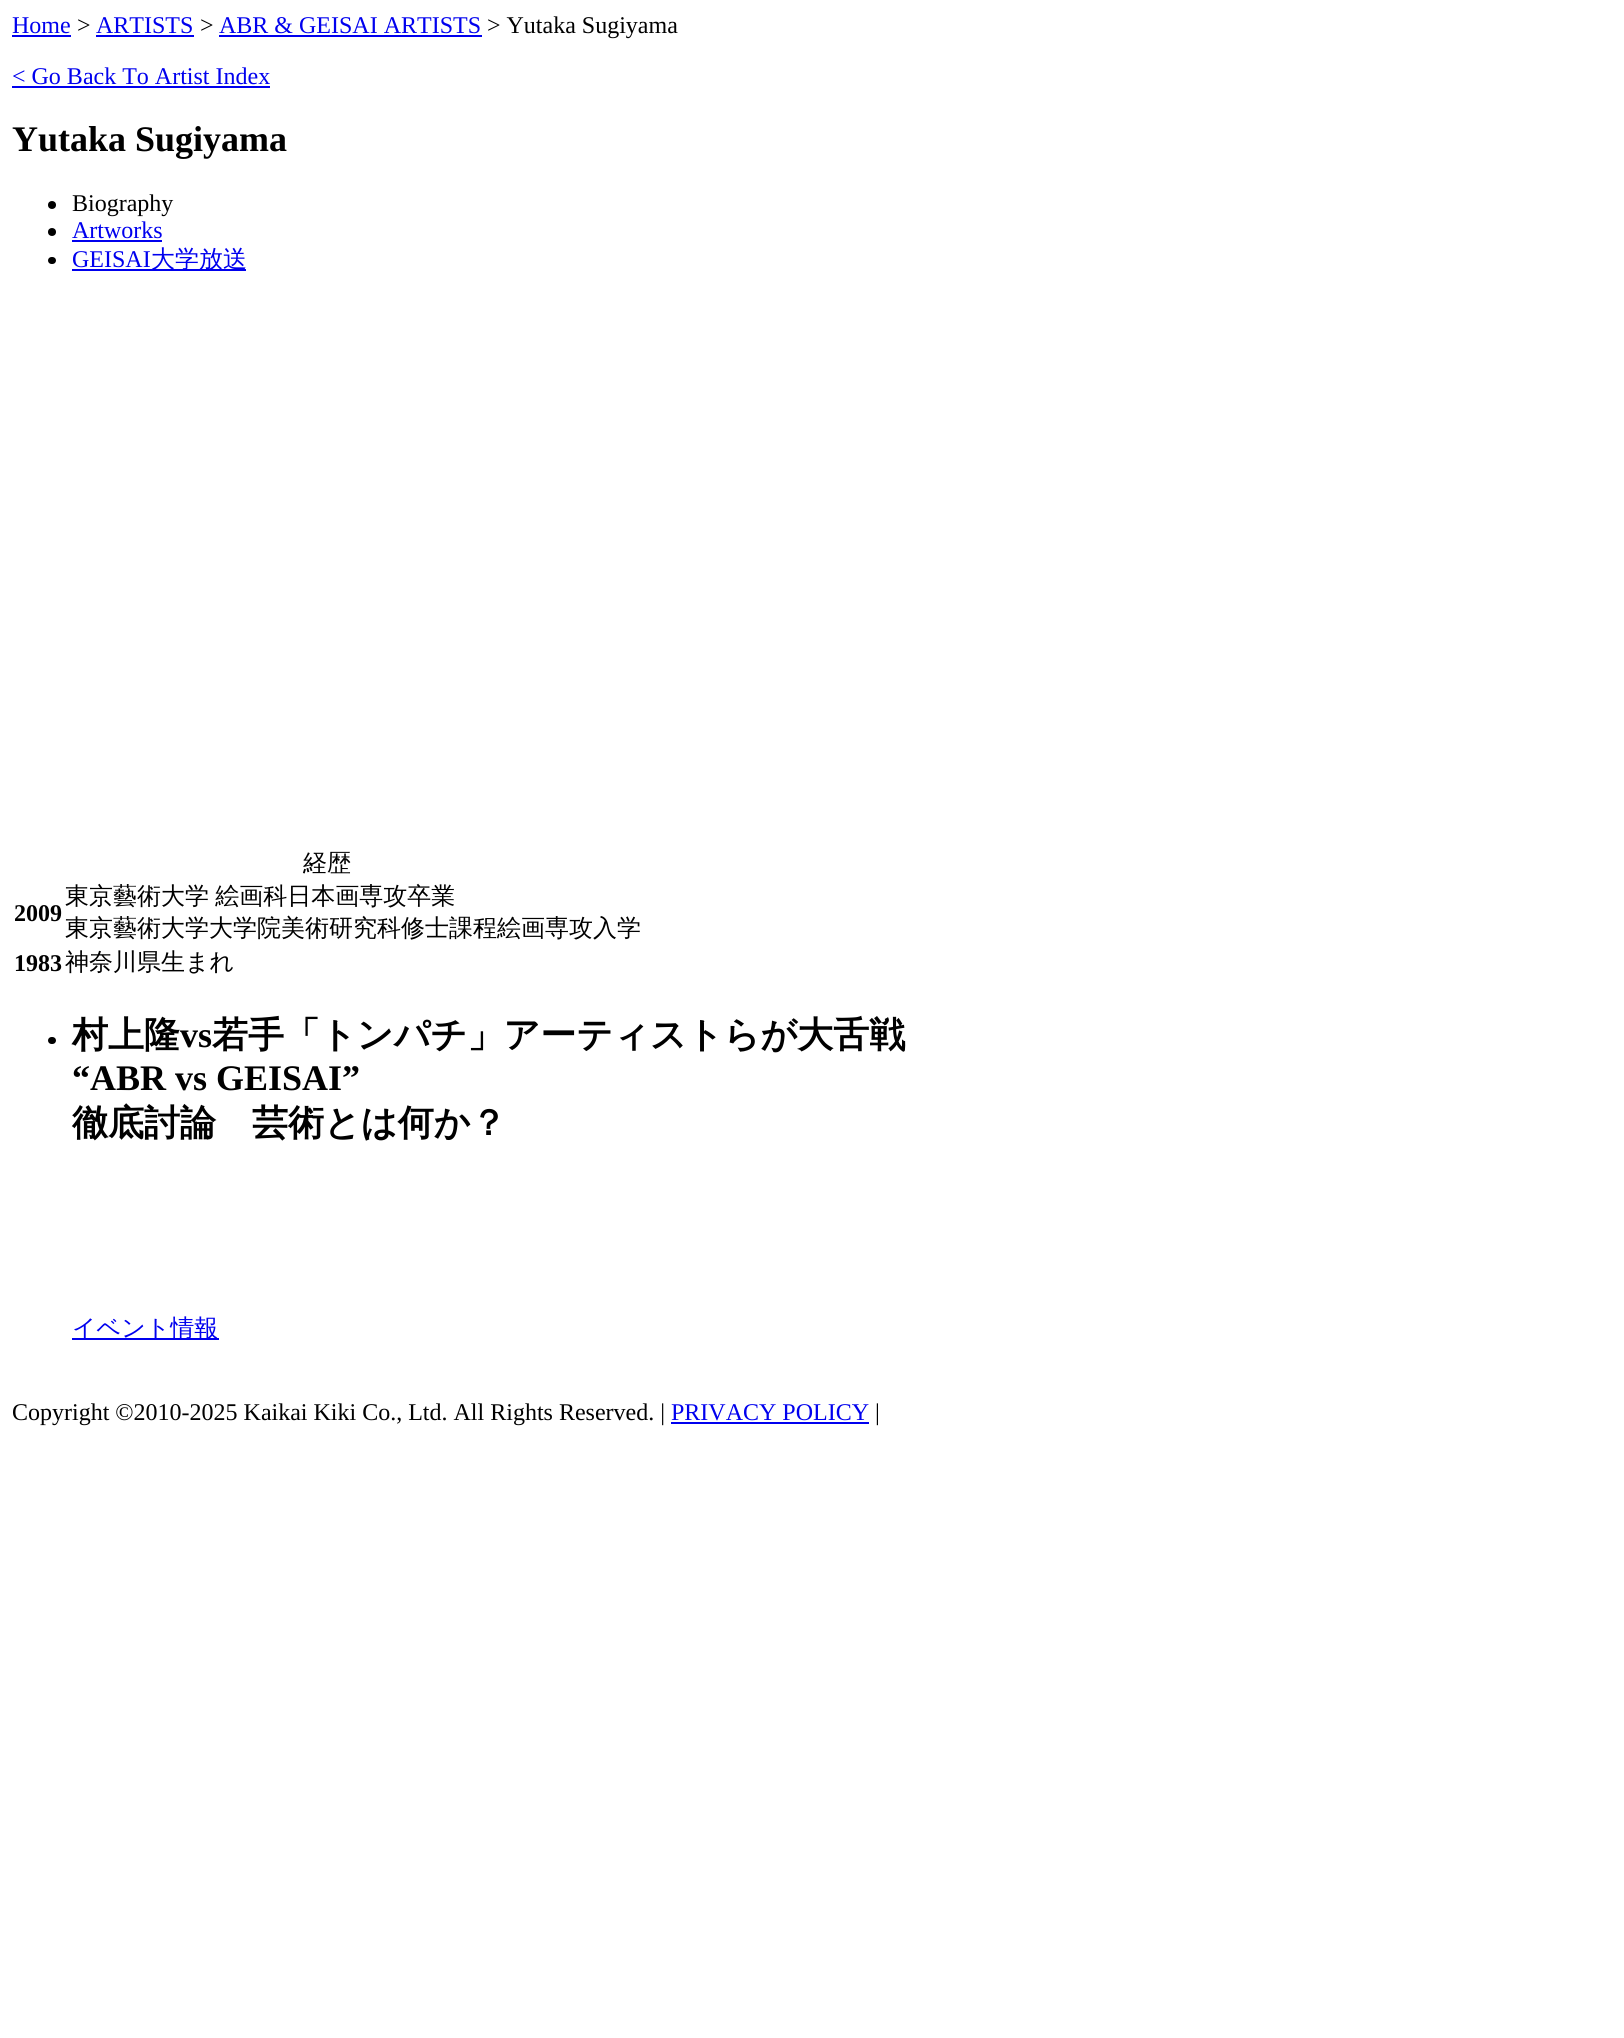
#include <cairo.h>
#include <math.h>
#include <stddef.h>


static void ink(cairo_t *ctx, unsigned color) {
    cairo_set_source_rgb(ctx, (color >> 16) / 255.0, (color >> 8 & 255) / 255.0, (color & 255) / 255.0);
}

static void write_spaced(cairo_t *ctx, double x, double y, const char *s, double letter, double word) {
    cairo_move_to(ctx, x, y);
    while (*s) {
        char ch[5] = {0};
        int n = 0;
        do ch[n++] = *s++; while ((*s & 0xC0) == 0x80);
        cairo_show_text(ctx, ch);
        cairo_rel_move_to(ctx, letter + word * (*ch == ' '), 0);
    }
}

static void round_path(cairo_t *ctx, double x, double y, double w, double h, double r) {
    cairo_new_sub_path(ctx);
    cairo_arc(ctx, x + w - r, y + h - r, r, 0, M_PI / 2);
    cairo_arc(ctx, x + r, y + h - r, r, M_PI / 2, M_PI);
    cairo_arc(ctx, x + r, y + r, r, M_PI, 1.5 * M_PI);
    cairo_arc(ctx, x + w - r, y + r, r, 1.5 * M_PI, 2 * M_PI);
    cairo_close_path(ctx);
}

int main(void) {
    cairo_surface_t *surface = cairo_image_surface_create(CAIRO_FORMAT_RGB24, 1624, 2038);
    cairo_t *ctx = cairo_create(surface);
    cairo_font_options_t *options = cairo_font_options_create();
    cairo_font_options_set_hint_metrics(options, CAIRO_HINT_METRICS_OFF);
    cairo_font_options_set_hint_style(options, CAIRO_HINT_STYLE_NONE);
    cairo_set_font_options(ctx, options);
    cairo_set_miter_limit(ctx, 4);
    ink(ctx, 0xFFFFFF);
    cairo_paint(ctx);
    cairo_select_font_face(ctx, "Liberation Serif", CAIRO_FONT_SLANT_NORMAL, CAIRO_FONT_WEIGHT_NORMAL);
    cairo_set_font_size(ctx, 24);
    ink(ctx, 0x0000EE);
    cairo_move_to(ctx, 12, 33);
    cairo_show_text(ctx, "Home");
    cairo_rectangle(ctx, 12, 35, 59, 2);
    cairo_fill(ctx);
    ink(ctx, 0x000000);
    cairo_move_to(ctx, 77, 33);
    cairo_show_text(ctx, ">");
    ink(ctx, 0x0000EE);
    cairo_move_to(ctx, 96, 33);
    cairo_show_text(ctx, "ARTISTS");
    cairo_rectangle(ctx, 96, 35, 98, 2);
    cairo_fill(ctx);
    ink(ctx, 0x000000);
    cairo_move_to(ctx, 200, 33);
    cairo_show_text(ctx, ">");
    ink(ctx, 0x0000EE);
    cairo_move_to(ctx, 219, 33);
    cairo_show_text(ctx, "ABR & GEISAI ARTISTS");
    cairo_rectangle(ctx, 219, 35, 263, 2);
    cairo_fill(ctx);
    ink(ctx, 0x000000);
    cairo_move_to(ctx, 487, 33);
    cairo_show_text(ctx, "> Yutaka Sugiyama");
    ink(ctx, 0x0000EE);
    cairo_move_to(ctx, 12, 84);
    cairo_show_text(ctx, "< Go Back To Artist Index");
    cairo_rectangle(ctx, 12, 86, 258, 2);
    cairo_fill(ctx);
    cairo_select_font_face(ctx, "Liberation Serif", CAIRO_FONT_SLANT_NORMAL, CAIRO_FONT_WEIGHT_BOLD);
    cairo_set_font_size(ctx, 36);
    ink(ctx, 0x000000);
    cairo_move_to(ctx, 12, 151);
    cairo_show_text(ctx, "Yutaka Sugiyama");
    cairo_new_path(ctx);
    cairo_arc(ctx, 52, 205, 4, 0, 2 * M_PI);
    cairo_fill(ctx);
    cairo_select_font_face(ctx, "Liberation Serif", CAIRO_FONT_SLANT_NORMAL, CAIRO_FONT_WEIGHT_NORMAL);
    cairo_set_font_size(ctx, 24);
    cairo_move_to(ctx, 72, 211);
    cairo_show_text(ctx, "Biography");
    cairo_new_path(ctx);
    cairo_arc(ctx, 52, 232, 4, 0, 2 * M_PI);
    cairo_fill(ctx);
    ink(ctx, 0x0000EE);
    cairo_move_to(ctx, 72, 238);
    cairo_show_text(ctx, "Artworks");
    cairo_rectangle(ctx, 72, 240, 90, 2);
    cairo_fill(ctx);
    ink(ctx, 0x000000);
    round_path(ctx, 48, 257, 8, 7, 3.5);
    cairo_fill(ctx);
    ink(ctx, 0x0000EE);
    cairo_move_to(ctx, 72, 267);
    cairo_show_text(ctx, "GEISAI");
    cairo_rectangle(ctx, 72, 269, 174, 2);
    cairo_fill(ctx);
    cairo_select_font_face(ctx, "WenQuanYi Zen Hei Medium", CAIRO_FONT_SLANT_NORMAL, CAIRO_FONT_WEIGHT_NORMAL);
    cairo_move_to(ctx, 151, 267);
    cairo_show_text(ctx, "大学放送");
    ink(ctx, 0x000000);
    cairo_move_to(ctx, 303, 871);
    cairo_show_text(ctx, "経歴");
    cairo_select_font_face(ctx, "Liberation Serif", CAIRO_FONT_SLANT_NORMAL, CAIRO_FONT_WEIGHT_BOLD);
    cairo_move_to(ctx, 14, 921);
    cairo_show_text(ctx, "2009");
    cairo_select_font_face(ctx, "WenQuanYi Zen Hei Medium", CAIRO_FONT_SLANT_NORMAL, CAIRO_FONT_WEIGHT_NORMAL);
    write_spaced(ctx, 65, 904, "東京藝術大学 絵画科日本画専攻卒業", 0, -1);
    cairo_move_to(ctx, 65, 936);
    cairo_show_text(ctx, "東京藝術大学大学院美術研究科修士課程絵画専攻入学");
    cairo_select_font_face(ctx, "Liberation Serif", CAIRO_FONT_SLANT_NORMAL, CAIRO_FONT_WEIGHT_BOLD);
    cairo_move_to(ctx, 14, 971);
    cairo_show_text(ctx, "1983");
    cairo_select_font_face(ctx, "WenQuanYi Zen Hei Medium", CAIRO_FONT_SLANT_NORMAL, CAIRO_FONT_WEIGHT_NORMAL);
    cairo_move_to(ctx, 65, 970);
    cairo_show_text(ctx, "神奈川県生まれ");
    round_path(ctx, 48, 1037, 8, 7, 3.5);
    cairo_fill(ctx);
    cairo_select_font_face(ctx, "WenQuanYi Zen Hei", CAIRO_FONT_SLANT_NORMAL, CAIRO_FONT_WEIGHT_BOLD);
    cairo_set_font_size(ctx, 36);
    cairo_move_to(ctx, 72, 1047);
    cairo_show_text(ctx, "村上隆");
    cairo_select_font_face(ctx, "Liberation Serif", CAIRO_FONT_SLANT_NORMAL, CAIRO_FONT_WEIGHT_BOLD);
    cairo_move_to(ctx, 180, 1047);
    cairo_show_text(ctx, "vs");
    cairo_select_font_face(ctx, "WenQuanYi Zen Hei", CAIRO_FONT_SLANT_NORMAL, CAIRO_FONT_WEIGHT_BOLD);
    cairo_move_to(ctx, 212, 1047);
    cairo_show_text(ctx, "若手「トンパチ」アーティストらが大舌戦");
    cairo_select_font_face(ctx, "Liberation Serif", CAIRO_FONT_SLANT_NORMAL, CAIRO_FONT_WEIGHT_BOLD);
    cairo_move_to(ctx, 72, 1090);
    cairo_show_text(ctx, "“ABR vs GEISAI”");
    cairo_select_font_face(ctx, "WenQuanYi Zen Hei", CAIRO_FONT_SLANT_NORMAL, CAIRO_FONT_WEIGHT_BOLD);
    cairo_move_to(ctx, 72, 1135);
    cairo_show_text(ctx, "徹底討論　芸術とは何か？");
    ink(ctx, 0x0000EE);
    cairo_rectangle(ctx, 72, 1338, 147, 2);
    cairo_fill(ctx);
    cairo_select_font_face(ctx, "WenQuanYi Zen Hei Medium", CAIRO_FONT_SLANT_NORMAL, CAIRO_FONT_WEIGHT_NORMAL);
    cairo_set_font_size(ctx, 24);
    cairo_move_to(ctx, 72, 1336);
    cairo_show_text(ctx, "イベント情報");
    cairo_select_font_face(ctx, "Liberation Serif", CAIRO_FONT_SLANT_NORMAL, CAIRO_FONT_WEIGHT_NORMAL);
    ink(ctx, 0x000000);
    cairo_move_to(ctx, 12, 1420);
    cairo_show_text(ctx, "Copyright ©2010-2025 Kaikai Kiki Co., Ltd. All Rights Reserved. |");
    ink(ctx, 0x0000EE);
    cairo_move_to(ctx, 671, 1420);
    cairo_show_text(ctx, "PRIVACY POLICY");
    cairo_rectangle(ctx, 671, 1422, 198, 2);
    cairo_fill(ctx);
    ink(ctx, 0x000000);
    cairo_move_to(ctx, 875, 1420);
    cairo_show_text(ctx, "|");
    cairo_surface_write_to_png(surface, "image.png");
    cairo_font_options_destroy(options);
    cairo_destroy(ctx);
    cairo_surface_destroy(surface);
    return 0;
}
